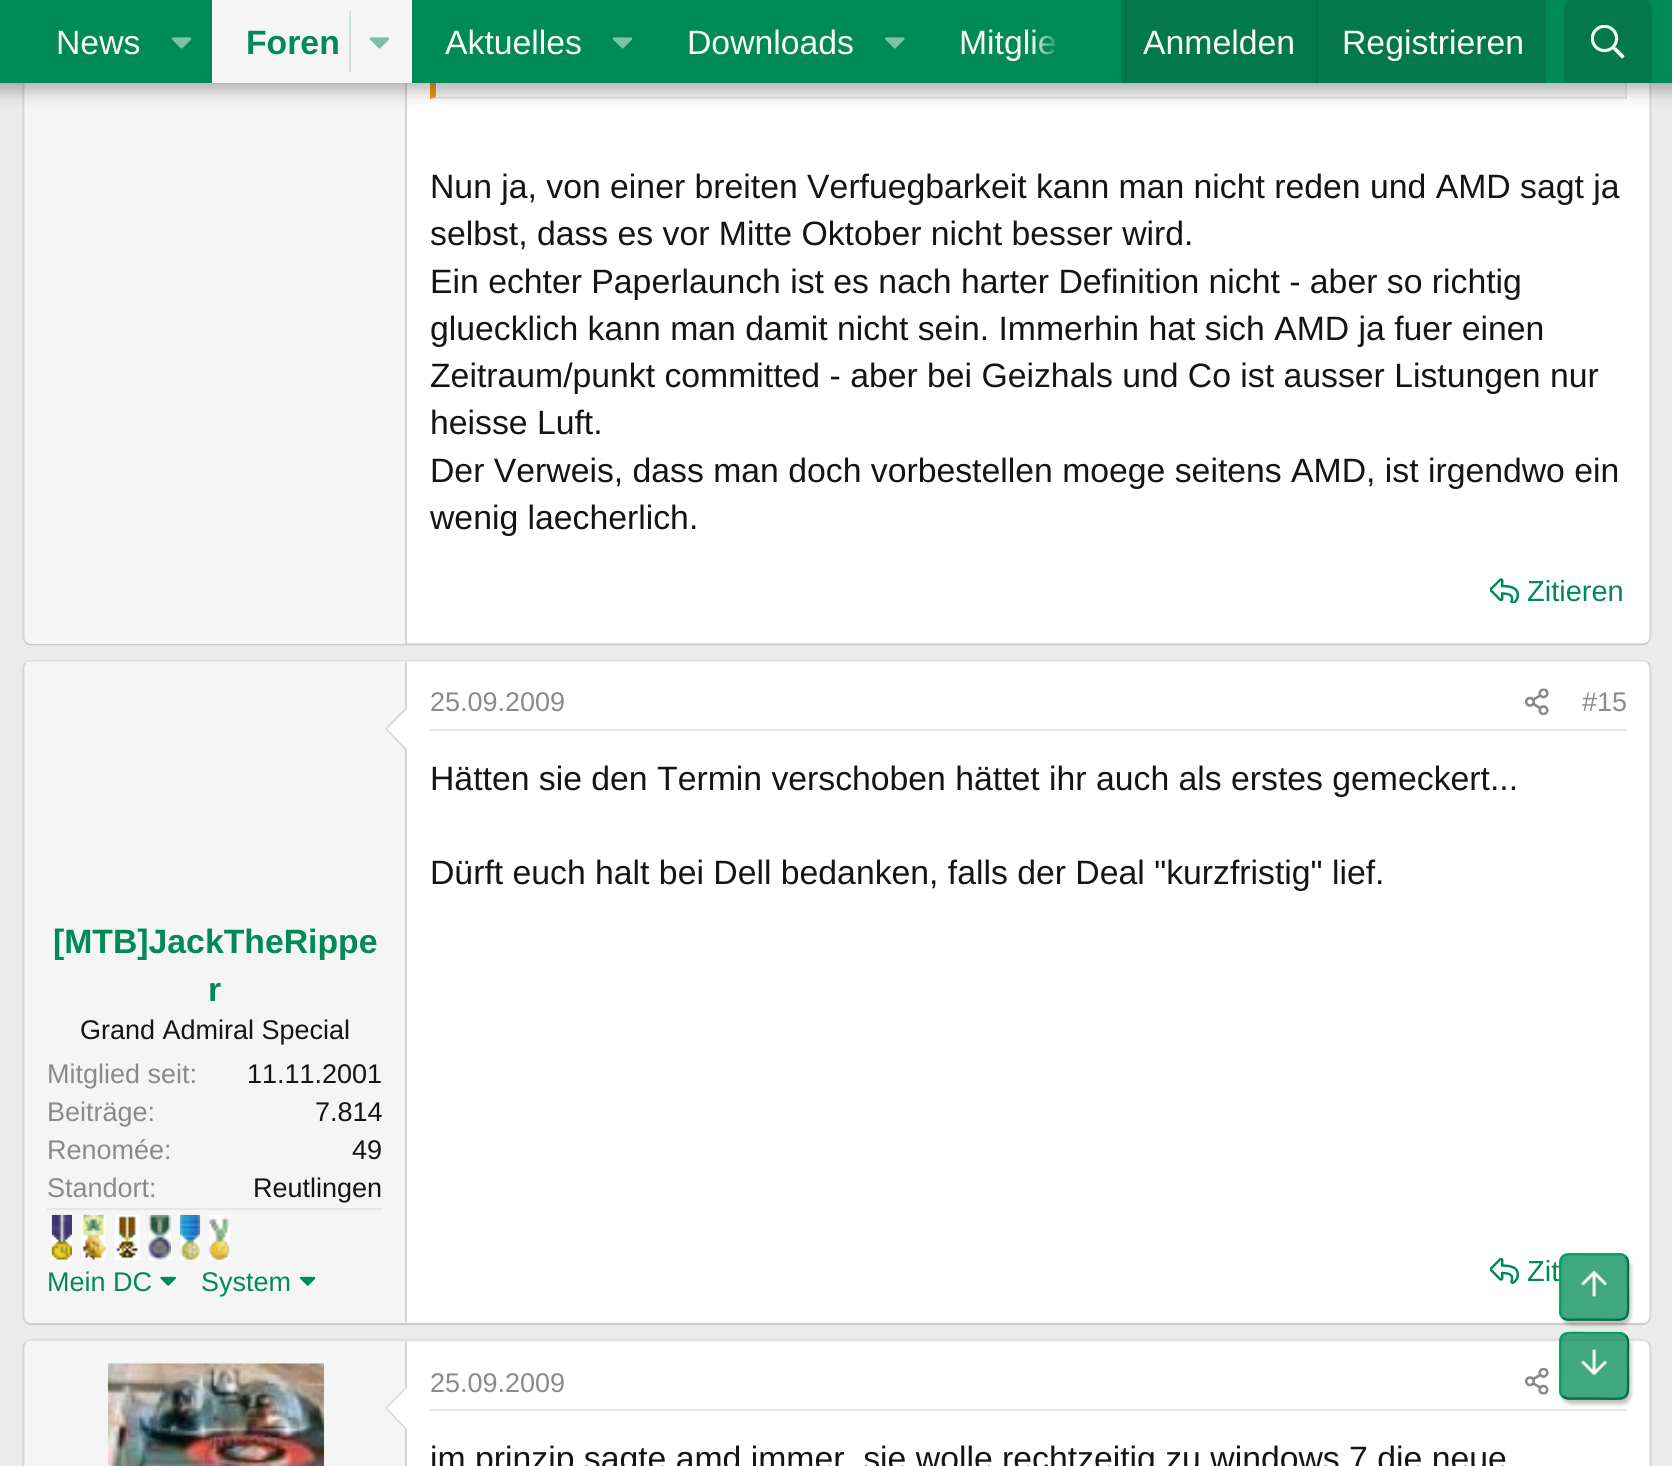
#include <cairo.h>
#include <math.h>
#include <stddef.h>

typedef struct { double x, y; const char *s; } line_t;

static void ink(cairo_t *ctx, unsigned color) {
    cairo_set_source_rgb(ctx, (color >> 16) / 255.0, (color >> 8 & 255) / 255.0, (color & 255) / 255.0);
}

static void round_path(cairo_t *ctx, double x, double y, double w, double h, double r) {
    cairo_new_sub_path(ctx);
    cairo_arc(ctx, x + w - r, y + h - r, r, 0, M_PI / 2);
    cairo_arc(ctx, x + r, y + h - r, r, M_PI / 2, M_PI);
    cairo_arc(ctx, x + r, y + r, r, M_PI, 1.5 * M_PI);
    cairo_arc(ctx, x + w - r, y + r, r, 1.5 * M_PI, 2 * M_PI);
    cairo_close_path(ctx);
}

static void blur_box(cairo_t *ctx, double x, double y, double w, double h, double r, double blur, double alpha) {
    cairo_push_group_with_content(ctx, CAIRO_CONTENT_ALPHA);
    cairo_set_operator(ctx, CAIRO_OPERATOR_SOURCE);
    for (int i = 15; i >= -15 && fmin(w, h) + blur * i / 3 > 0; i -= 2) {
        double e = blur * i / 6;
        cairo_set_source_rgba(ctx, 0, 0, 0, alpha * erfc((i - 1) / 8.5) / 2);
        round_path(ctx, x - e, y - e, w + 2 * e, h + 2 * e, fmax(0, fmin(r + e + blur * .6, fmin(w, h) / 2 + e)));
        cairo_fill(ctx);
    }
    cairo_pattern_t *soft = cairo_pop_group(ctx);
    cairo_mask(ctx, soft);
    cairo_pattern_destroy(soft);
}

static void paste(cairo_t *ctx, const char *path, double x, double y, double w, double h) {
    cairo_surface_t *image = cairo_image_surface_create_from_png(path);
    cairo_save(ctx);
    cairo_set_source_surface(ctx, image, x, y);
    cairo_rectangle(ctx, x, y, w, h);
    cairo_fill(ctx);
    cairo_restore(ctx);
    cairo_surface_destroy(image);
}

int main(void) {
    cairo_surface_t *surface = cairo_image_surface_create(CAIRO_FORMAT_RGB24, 1672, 1466);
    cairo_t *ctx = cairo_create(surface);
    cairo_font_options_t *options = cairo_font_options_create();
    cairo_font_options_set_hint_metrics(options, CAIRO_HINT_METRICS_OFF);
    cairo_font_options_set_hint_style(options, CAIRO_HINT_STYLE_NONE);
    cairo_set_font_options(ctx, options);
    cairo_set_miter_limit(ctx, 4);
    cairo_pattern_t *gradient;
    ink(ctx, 0xEBEBEB);
    cairo_paint(ctx);
    ink(ctx, 0xFFFFFF);
    round_path(ctx, 23, -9, 1629, 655, 9);
    cairo_fill(ctx);
    cairo_new_path(ctx);
    cairo_move_to(ctx, 1648, -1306);
    cairo_curve_to(ctx, 1649.5, -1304.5, 1650.5, -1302.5, 1650.5, -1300.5);
    cairo_line_to(ctx, 1650.5, 637);
    cairo_curve_to(ctx, 1650.5, 639, 1649.5, 641, 1648, 642.5);
    ink(ctx, 0xD6D6D6);
    cairo_set_line_width(ctx, 2.2);
    cairo_stroke(ctx);
    cairo_new_path(ctx);
    cairo_move_to(ctx, 1648, 642.5);
    cairo_curve_to(ctx, 1646.5, 644, 1644.5, 644.5, 1642.5, 644.5);
    cairo_line_to(ctx, 31.5, 644.5);
    cairo_curve_to(ctx, 29.5, 644.5, 27.5, 644, 26, 642.5);
    ink(ctx, 0xCCCCCC);
    cairo_stroke(ctx);
    cairo_new_path(ctx);
    cairo_move_to(ctx, 26, 642.5);
    cairo_curve_to(ctx, 24.5, 641, 23.5, 639, 23.5, 637);
    cairo_line_to(ctx, 23.5, -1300.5);
    cairo_curve_to(ctx, 23.5, -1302.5, 24.5, -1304.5, 26, -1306);
    ink(ctx, 0xD6D6D6);
    cairo_stroke(ctx);
    ink(ctx, 0xF5F5F5);
    cairo_new_path(ctx);
    cairo_move_to(ctx, 32, -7);
    cairo_line_to(ctx, 407, -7);
    cairo_line_to(ctx, 407, 644);
    cairo_line_to(ctx, 32, 644);
    cairo_curve_to(ctx, 28, 644, 25, 641, 25, 637);
    cairo_line_to(ctx, 25, 0);
    cairo_curve_to(ctx, 25, -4, 28, -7, 32, -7);
    cairo_close_path(ctx);
    cairo_fill(ctx);
    ink(ctx, 0xD6D6D6);
    cairo_rectangle(ctx, 405, 83, 2, 561);
    cairo_fill(ctx);
    ink(ctx, 0xE6E6E6);
    cairo_rectangle(ctx, 1625, 83, 2, 16);
    cairo_fill(ctx);
    cairo_new_path(ctx);
    cairo_move_to(ctx, 1627, 99);
    cairo_line_to(ctx, 430, 99);
    cairo_line_to(ctx, 436, 97);
    cairo_line_to(ctx, 1624, 97);
    cairo_close_path(ctx);
    cairo_fill(ctx);
    ink(ctx, 0xF2930D);
    cairo_new_path(ctx);
    cairo_move_to(ctx, 430, 99);
    cairo_line_to(ctx, 430, -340);
    cairo_line_to(ctx, 436, -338);
    cairo_line_to(ctx, 436, 97);
    cairo_close_path(ctx);
    cairo_fill(ctx);
    gradient = cairo_pattern_create_linear(1031, -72, 1031, 97);
    cairo_pattern_add_color_stop_rgba(gradient, 0, 0.961, 0.961, 0.961, 0);
    cairo_pattern_add_color_stop_rgba(gradient, 0.8, 0.961, 0.961, 0.961, 1);
    cairo_set_source(ctx, gradient);
    cairo_pattern_destroy(gradient);
    cairo_rectangle(ctx, 437, 83, 1188, 14);
    cairo_fill(ctx);
    ink(ctx, 0x000000);
    blur_box(ctx, -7, -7, 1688, 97, 0, 9, 0.3);
    ink(ctx, 0x008A57);
    cairo_rectangle(ctx, 0, 0, 1672, 83);
    cairo_fill(ctx);
    cairo_select_font_face(ctx, "Liberation Sans", CAIRO_FONT_SLANT_NORMAL, CAIRO_FONT_WEIGHT_NORMAL);
    cairo_set_font_size(ctx, 33.75);
    ink(ctx, 0xFAFAFA);
    cairo_move_to(ctx, 56, 54);
    cairo_show_text(ctx, "News");
    paste(ctx, "media/1.png", 171, 37, 20, 12);
    ink(ctx, 0xF5F5F5);
    cairo_rectangle(ctx, 212, 0, 200, 83);
    cairo_fill(ctx);
    cairo_select_font_face(ctx, "Liberation Sans", CAIRO_FONT_SLANT_NORMAL, CAIRO_FONT_WEIGHT_BOLD);
    ink(ctx, 0x008A57);
    cairo_move_to(ctx, 246, 54);
    cairo_show_text(ctx, "Foren");
    ink(ctx, 0xCAE2D9);
    cairo_rectangle(ctx, 349, 11, 2, 61);
    cairo_fill(ctx);
    paste(ctx, "media/2.png", 369, 37, 20, 12);
    cairo_select_font_face(ctx, "Liberation Sans", CAIRO_FONT_SLANT_NORMAL, CAIRO_FONT_WEIGHT_NORMAL);
    ink(ctx, 0xFAFAFA);
    cairo_move_to(ctx, 445, 54);
    cairo_show_text(ctx, "Aktuelles");
    paste(ctx, "media/1.png", 612, 37, 20, 12);
    cairo_move_to(ctx, 687, 54);
    cairo_show_text(ctx, "Downloads");
    paste(ctx, "media/3.png", 885, 37, 20, 12);
    cairo_move_to(ctx, 959, 54);
    cairo_show_text(ctx, "Mitglie");
    gradient = cairo_pattern_create_linear(1031, 42, 1121, 42);
    cairo_pattern_add_color_stop_rgba(gradient, 0, 0, 0.541, 0.341, 0);
    cairo_pattern_add_color_stop_rgba(gradient, 0.33, 0, 0.541, 0.341, 1);
    cairo_set_source(ctx, gradient);
    cairo_pattern_destroy(gradient);
    cairo_rectangle(ctx, 1032, 29, 24, 26);
    cairo_fill(ctx);
    ink(ctx, 0x03784D);
    cairo_rectangle(ctx, 1121, 0, 425, 83);
    cairo_fill(ctx);
    ink(ctx, 0xFAFAFA);
    cairo_move_to(ctx, 1143, 54);
    cairo_show_text(ctx, "Anmelden");
    ink(ctx, 0x066944);
    cairo_rectangle(ctx, 1316, 0, 2, 83);
    cairo_fill(ctx);
    ink(ctx, 0xFAFAFA);
    cairo_move_to(ctx, 1342, 54);
    cairo_show_text(ctx, "Registrieren");
    ink(ctx, 0x03784D);
    cairo_new_path(ctx);
    cairo_move_to(ctx, 1573, 0);
    cairo_line_to(ctx, 1643, 0);
    cairo_curve_to(ctx, 1648, 0, 1652, 4, 1652, 9);
    cairo_line_to(ctx, 1652, 83);
    cairo_line_to(ctx, 1564, 83);
    cairo_line_to(ctx, 1564, 9);
    cairo_curve_to(ctx, 1564, 4, 1568, 0, 1573, 0);
    cairo_close_path(ctx);
    cairo_fill(ctx);
    paste(ctx, "media/4.png", 1591, 25, 34, 34);
    ink(ctx, 0x141414);
    {
        static const line_t items[] = {
            {430, 198, "Nun ja, von einer breiten Verfuegbarkeit kann man nicht reden und AMD sagt ja"},
            {430, 245, "selbst, dass es vor Mitte Oktober nicht besser wird."},
            {430, 293, "Ein echter Paperlaunch ist es nach harter Definition nicht - aber so richtig"},
            {430, 340, "gluecklich kann man damit nicht sein. Immerhin hat sich AMD ja fuer einen"},
            {430, 387, "Zeitraum/punkt committed - aber bei Geizhals und Co ist ausser Listungen nur"},
            {430, 434, "heisse Luft."},
            {430, 482, "Der Verweis, dass man doch vorbestellen moege seitens AMD, ist irgendwo ein"},
            {430, 529, "wenig laecherlich."},
        };
        for (size_t i = 0; i < sizeof items / sizeof *items; i++) {
            cairo_move_to(ctx, items[i].x, items[i].y);
            cairo_show_text(ctx, items[i].s);
        }
    }
    paste(ctx, "media/5.png", 1490, 578, 30, 25);
    cairo_set_font_size(ctx, 29);
    ink(ctx, 0x008A57);
    cairo_move_to(ctx, 1527, 601);
    cairo_show_text(ctx, "Zitieren");
    ink(ctx, 0xFFFFFF);
    round_path(ctx, 23, 659, 1629, 666, 9);
    cairo_fill(ctx);
    cairo_new_path(ctx);
    cairo_move_to(ctx, 26, 662.5);
    cairo_curve_to(ctx, 27.5, 661, 29.5, 660.5, 31.5, 660.5);
    cairo_line_to(ctx, 1642.5, 660.5);
    cairo_curve_to(ctx, 1644.5, 660.5, 1646.5, 661, 1648, 662.5);
    ink(ctx, 0xE0E0E0);
    cairo_stroke(ctx);
    cairo_new_path(ctx);
    cairo_move_to(ctx, 1648, 662.5);
    cairo_curve_to(ctx, 1649.5, 664, 1650.5, 666, 1650.5, 668);
    cairo_line_to(ctx, 1650.5, 1316);
    cairo_curve_to(ctx, 1650.5, 1318.5, 1649.5, 1320.5, 1648, 1322);
    ink(ctx, 0xD6D6D6);
    cairo_stroke(ctx);
    cairo_new_path(ctx);
    cairo_move_to(ctx, 1648, 1322);
    cairo_curve_to(ctx, 1646.5, 1323.5, 1644.5, 1324, 1642.5, 1324);
    cairo_line_to(ctx, 31.5, 1324);
    cairo_curve_to(ctx, 29.5, 1324, 27.5, 1323.5, 26, 1322);
    ink(ctx, 0xCCCCCC);
    cairo_stroke(ctx);
    cairo_new_path(ctx);
    cairo_move_to(ctx, 26, 1322);
    cairo_curve_to(ctx, 24.5, 1320.5, 23.5, 1318.5, 23.5, 1316);
    cairo_line_to(ctx, 23.5, 668);
    cairo_curve_to(ctx, 23.5, 666, 24.5, 664, 26, 662.5);
    ink(ctx, 0xD6D6D6);
    cairo_stroke(ctx);
    ink(ctx, 0xF5F5F5);
    cairo_new_path(ctx);
    cairo_move_to(ctx, 32, 662);
    cairo_line_to(ctx, 407, 662);
    cairo_line_to(ctx, 407, 1323);
    cairo_line_to(ctx, 32, 1323);
    cairo_curve_to(ctx, 28, 1323, 25, 1320, 25, 1316);
    cairo_line_to(ctx, 25, 669);
    cairo_curve_to(ctx, 25, 665, 28, 662, 32, 662);
    cairo_close_path(ctx);
    cairo_fill(ctx);
    ink(ctx, 0xD6D6D6);
    cairo_rectangle(ctx, 405, 662, 2, 661);
    cairo_fill(ctx);
    cairo_new_path(ctx);
    cairo_move_to(ctx, 407, 706);
    cairo_line_to(ctx, 407, 752);
    cairo_line_to(ctx, 385, 729);
    cairo_close_path(ctx);
    cairo_fill(ctx);
    ink(ctx, 0xFFFFFF);
    cairo_new_path(ctx);
    cairo_move_to(ctx, 407, 709);
    cairo_line_to(ctx, 407, 749);
    cairo_line_to(ctx, 387, 729);
    cairo_close_path(ctx);
    cairo_fill(ctx);
    cairo_select_font_face(ctx, "Liberation Sans", CAIRO_FONT_SLANT_NORMAL, CAIRO_FONT_WEIGHT_BOLD);
    cairo_set_font_size(ctx, 33.75);
    ink(ctx, 0x008A57);
    cairo_move_to(ctx, 53, 953);
    cairo_show_text(ctx, "[MTB]JackTheRippe");
    cairo_move_to(ctx, 208, 1001);
    cairo_show_text(ctx, "r");
    cairo_select_font_face(ctx, "Liberation Sans", CAIRO_FONT_SLANT_NORMAL, CAIRO_FONT_WEIGHT_NORMAL);
    cairo_set_font_size(ctx, 27);
    ink(ctx, 0x141414);
    cairo_move_to(ctx, 80, 1039);
    cairo_show_text(ctx, "Grand Admiral Special");
    ink(ctx, 0x8A8A8A);
    cairo_move_to(ctx, 47, 1083);
    cairo_show_text(ctx, "Mitglied seit:");
    ink(ctx, 0x141414);
    cairo_move_to(ctx, 247, 1083);
    cairo_show_text(ctx, "11.11.2001");
    ink(ctx, 0x8A8A8A);
    cairo_move_to(ctx, 47, 1121);
    cairo_show_text(ctx, "Beiträge:");
    ink(ctx, 0x141414);
    cairo_move_to(ctx, 315, 1121);
    cairo_show_text(ctx, "7.814");
    ink(ctx, 0x8A8A8A);
    cairo_move_to(ctx, 47, 1159);
    cairo_show_text(ctx, "Renomée:");
    ink(ctx, 0x141414);
    cairo_move_to(ctx, 352, 1159);
    cairo_show_text(ctx, "49");
    ink(ctx, 0x8A8A8A);
    cairo_move_to(ctx, 47, 1197);
    cairo_show_text(ctx, "Standort:");
    ink(ctx, 0x141414);
    cairo_move_to(ctx, 253, 1197);
    cairo_show_text(ctx, "Reutlingen");
    ink(ctx, 0xE6E6E6);
    cairo_rectangle(ctx, 47, 1208, 336, 2);
    cairo_fill(ctx);
    ink(ctx, 0xFFFFFF);
    cairo_rectangle(ctx, 52, 1234, 20, 26);
    cairo_fill(ctx);
    paste(ctx, "media/6.png", 51, 1214, 21, 46);
    cairo_rectangle(ctx, 81, 1215, 25, 45);
    cairo_fill(ctx);
    paste(ctx, "media/7.png", 81, 1214, 25, 46);
    cairo_rectangle(ctx, 115, 1215, 25, 45);
    cairo_fill(ctx);
    paste(ctx, "media/8.png", 116, 1216, 22, 43);
    cairo_rectangle(ctx, 149, 1215, 22, 45);
    cairo_fill(ctx);
    paste(ctx, "media/9.png", 148, 1214, 23, 46);
    cairo_rectangle(ctx, 180, 1215, 20, 45);
    cairo_fill(ctx);
    paste(ctx, "media/10.png", 180, 1214, 21, 46);
    cairo_rectangle(ctx, 209, 1215, 21, 45);
    cairo_fill(ctx);
    paste(ctx, "media/11.png", 209, 1216, 21, 44);
    ink(ctx, 0x008A57);
    cairo_move_to(ctx, 47, 1291);
    cairo_show_text(ctx, "Mein DC");
    paste(ctx, "media/12.png", 160, 1276, 16, 10);
    cairo_move_to(ctx, 201, 1291);
    cairo_show_text(ctx, "System");
    paste(ctx, "media/13.png", 299, 1276, 16, 10);
    ink(ctx, 0xE6E6E6);
    cairo_rectangle(ctx, 430, 729, 1197, 2);
    cairo_fill(ctx);
    ink(ctx, 0x8A8A8A);
    cairo_move_to(ctx, 430, 711);
    cairo_show_text(ctx, "25.09.2009");
    paste(ctx, "media/14.png", 1525, 688, 24, 27);
    cairo_move_to(ctx, 1582, 711);
    cairo_show_text(ctx, "#15");
    cairo_set_font_size(ctx, 33.75);
    ink(ctx, 0x141414);
    cairo_move_to(ctx, 430, 790);
    cairo_show_text(ctx, "Hätten sie den Termin verschoben hättet ihr auch als erstes gemeckert...");
    cairo_move_to(ctx, 430, 884);
    cairo_show_text(ctx, "Dürft euch halt bei Dell bedanken, falls der Deal \"kurzfristig\" lief.");
    paste(ctx, "media/15.png", 1490, 1258, 30, 26);
    cairo_set_font_size(ctx, 29);
    ink(ctx, 0x008A57);
    cairo_move_to(ctx, 1527, 1281);
    cairo_show_text(ctx, "Zit");
    ink(ctx, 0xFFFFFF);
    round_path(ctx, 23, 1339, 1629, 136, 9);
    cairo_fill(ctx);
    cairo_new_path(ctx);
    cairo_move_to(ctx, 26, 1342);
    cairo_curve_to(ctx, 27.5, 1340.5, 29.5, 1340, 31.5, 1340);
    cairo_line_to(ctx, 1642.5, 1340);
    cairo_curve_to(ctx, 1644.5, 1340, 1646.5, 1340.5, 1648, 1342);
    ink(ctx, 0xE0E0E0);
    cairo_stroke(ctx);
    cairo_new_path(ctx);
    cairo_move_to(ctx, 1648, 1342);
    cairo_curve_to(ctx, 1649.5, 1343.5, 1650.5, 1345.5, 1650.5, 1348);
    cairo_line_to(ctx, 1650.5, 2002.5);
    cairo_curve_to(ctx, 1650.5, 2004.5, 1649.5, 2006.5, 1648, 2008);
    ink(ctx, 0xD6D6D6);
    cairo_stroke(ctx);
    cairo_new_path(ctx);
    cairo_move_to(ctx, 26, 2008);
    cairo_curve_to(ctx, 24.5, 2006.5, 23.5, 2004.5, 23.5, 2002.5);
    cairo_line_to(ctx, 23.5, 1348);
    cairo_curve_to(ctx, 23.5, 1345.5, 24.5, 1343.5, 26, 1342);
    cairo_stroke(ctx);
    ink(ctx, 0xF5F5F5);
    cairo_new_path(ctx);
    cairo_move_to(ctx, 32, 1341);
    cairo_line_to(ctx, 407, 1341);
    cairo_line_to(ctx, 407, 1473);
    cairo_line_to(ctx, 32, 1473);
    cairo_curve_to(ctx, 28, 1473, 25, 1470, 25, 1466);
    cairo_line_to(ctx, 25, 1348);
    cairo_curve_to(ctx, 25, 1344, 28, 1341, 32, 1341);
    cairo_close_path(ctx);
    cairo_fill(ctx);
    ink(ctx, 0xD6D6D6);
    cairo_rectangle(ctx, 405, 1341, 2, 125);
    cairo_fill(ctx);
    paste(ctx, "media/16.png", 108, 1363, 216, 103);
    cairo_new_path(ctx);
    cairo_move_to(ctx, 407, 1386);
    cairo_line_to(ctx, 407, 1431);
    cairo_line_to(ctx, 385, 1408);
    cairo_close_path(ctx);
    cairo_fill(ctx);
    ink(ctx, 0xFFFFFF);
    cairo_new_path(ctx);
    cairo_move_to(ctx, 407, 1388);
    cairo_line_to(ctx, 407, 1429);
    cairo_line_to(ctx, 387, 1408);
    cairo_close_path(ctx);
    cairo_fill(ctx);
    ink(ctx, 0xE6E6E6);
    cairo_rectangle(ctx, 430, 1409, 1197, 2);
    cairo_fill(ctx);
    cairo_set_font_size(ctx, 27);
    ink(ctx, 0x8A8A8A);
    cairo_move_to(ctx, 430, 1392);
    cairo_show_text(ctx, "25.09.2009");
    paste(ctx, "media/17.png", 1525, 1368, 24, 27);
    cairo_set_font_size(ctx, 33.75);
    ink(ctx, 0x141414);
    cairo_move_to(ctx, 430, 1470);
    cairo_show_text(ctx, "im prinzip sagte amd immer, sie wolle rechtzeitig zu windows 7 die neue");
    cairo_save(ctx);
    cairo_set_fill_rule(ctx, CAIRO_FILL_RULE_EVEN_ODD);
    cairo_new_path(ctx);
    cairo_move_to(ctx, 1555, 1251);
    cairo_line_to(ctx, 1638, 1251);
    cairo_line_to(ctx, 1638, 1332);
    cairo_line_to(ctx, 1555, 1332);
    cairo_close_path(ctx);
    cairo_move_to(ctx, 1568, 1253);
    cairo_line_to(ctx, 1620, 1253);
    cairo_curve_to(ctx, 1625, 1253, 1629, 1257, 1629, 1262);
    cairo_line_to(ctx, 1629, 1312);
    cairo_curve_to(ctx, 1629, 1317, 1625, 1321, 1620, 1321);
    cairo_line_to(ctx, 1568, 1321);
    cairo_curve_to(ctx, 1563, 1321, 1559, 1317, 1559, 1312);
    cairo_line_to(ctx, 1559, 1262);
    cairo_curve_to(ctx, 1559, 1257, 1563, 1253, 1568, 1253);
    cairo_close_path(ctx);
    cairo_clip(ctx);
    ink(ctx, 0x000000);
    blur_box(ctx, 1562, 1258, 69, 67, 9, 2, 0.25);
    cairo_restore(ctx);
    cairo_set_source_rgba(ctx, 0, 0.541, 0.341, 0.75);
    round_path(ctx, 1559, 1253, 70, 68, 9);
    cairo_fill(ctx);
    cairo_new_path(ctx);
    cairo_move_to(ctx, 1625.5, 1256.5);
    cairo_curve_to(ctx, 1629, 1260, 1628, 1266, 1628, 1270.5);
    cairo_line_to(ctx, 1628, 1287);
    cairo_curve_to(ctx, 1628, 1325, 1632.5, 1319.5, 1594, 1319.5);
    cairo_line_to(ctx, 1577, 1319.5);
    cairo_curve_to(ctx, 1572.5, 1319.5, 1566.5, 1321, 1562.5, 1317.5);
    ink(ctx, 0x007047);
    cairo_stroke(ctx);
    cairo_new_path(ctx);
    cairo_move_to(ctx, 1562.5, 1317.5);
    cairo_curve_to(ctx, 1559, 1314, 1560.5, 1308, 1560.5, 1303.5);
    cairo_line_to(ctx, 1560.5, 1287);
    cairo_curve_to(ctx, 1560.5, 1249, 1555.5, 1254.5, 1594, 1254.5);
    cairo_line_to(ctx, 1611.5, 1254.5);
    cairo_curve_to(ctx, 1615.5, 1254.5, 1622, 1253, 1625.5, 1256.5);
    ink(ctx, 0x00A367);
    cairo_stroke(ctx);
    paste(ctx, "media/18.png", 1581, 1270, 27, 27);
    cairo_save(ctx);
    cairo_set_fill_rule(ctx, CAIRO_FILL_RULE_EVEN_ODD);
    cairo_new_path(ctx);
    cairo_move_to(ctx, 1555, 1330);
    cairo_line_to(ctx, 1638, 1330);
    cairo_line_to(ctx, 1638, 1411);
    cairo_line_to(ctx, 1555, 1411);
    cairo_close_path(ctx);
    cairo_move_to(ctx, 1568, 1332);
    cairo_line_to(ctx, 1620, 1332);
    cairo_curve_to(ctx, 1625, 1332, 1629, 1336, 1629, 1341);
    cairo_line_to(ctx, 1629, 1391);
    cairo_curve_to(ctx, 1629, 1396, 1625, 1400, 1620, 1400);
    cairo_line_to(ctx, 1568, 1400);
    cairo_curve_to(ctx, 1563, 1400, 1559, 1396, 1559, 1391);
    cairo_line_to(ctx, 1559, 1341);
    cairo_curve_to(ctx, 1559, 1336, 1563, 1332, 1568, 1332);
    cairo_close_path(ctx);
    cairo_clip(ctx);
    ink(ctx, 0x000000);
    blur_box(ctx, 1562, 1337, 69, 67, 9, 2, 0.25);
    cairo_restore(ctx);
    cairo_set_source_rgba(ctx, 0, 0.541, 0.341, 0.75);
    round_path(ctx, 1559, 1332, 70, 68, 9);
    cairo_fill(ctx);
    cairo_new_path(ctx);
    cairo_move_to(ctx, 1625.5, 1335.5);
    cairo_curve_to(ctx, 1629, 1339, 1628, 1345, 1628, 1349);
    cairo_line_to(ctx, 1628, 1366);
    cairo_curve_to(ctx, 1628, 1404, 1632.5, 1398.5, 1594, 1398.5);
    cairo_line_to(ctx, 1577, 1398.5);
    cairo_curve_to(ctx, 1572.5, 1398.5, 1566.5, 1399.5, 1562.5, 1396);
    ink(ctx, 0x007047);
    cairo_stroke(ctx);
    cairo_new_path(ctx);
    cairo_move_to(ctx, 1562.5, 1396);
    cairo_curve_to(ctx, 1559, 1392.5, 1560.5, 1386.5, 1560.5, 1382);
    cairo_line_to(ctx, 1560.5, 1366);
    cairo_curve_to(ctx, 1560.5, 1327.5, 1555.5, 1333, 1594, 1333);
    cairo_line_to(ctx, 1611.5, 1333);
    cairo_curve_to(ctx, 1615.5, 1333, 1622, 1332, 1625.5, 1335.5);
    ink(ctx, 0x00A367);
    cairo_stroke(ctx);
    paste(ctx, "media/19.png", 1581, 1349, 27, 27);
    cairo_surface_write_to_png(surface, "image.png");
    cairo_font_options_destroy(options);
    cairo_destroy(ctx);
    cairo_surface_destroy(surface);
    return 0;
}
